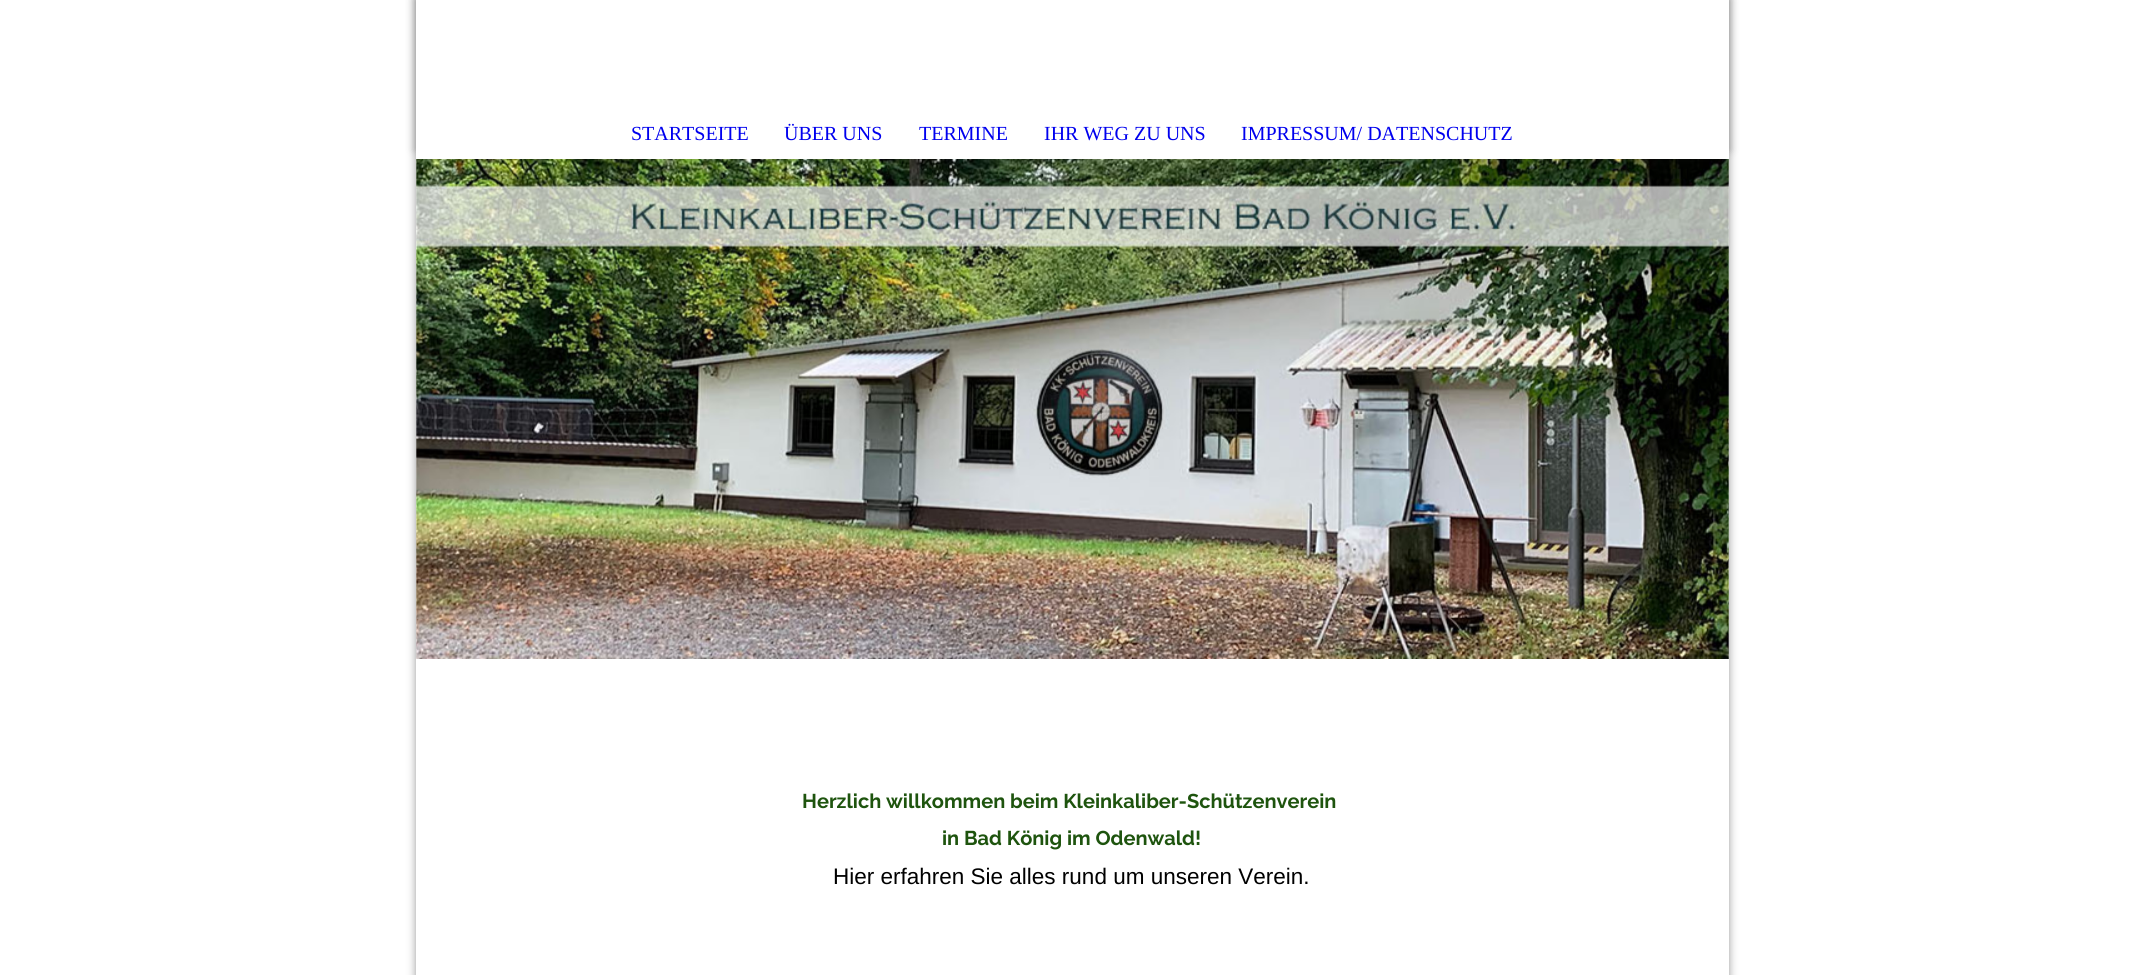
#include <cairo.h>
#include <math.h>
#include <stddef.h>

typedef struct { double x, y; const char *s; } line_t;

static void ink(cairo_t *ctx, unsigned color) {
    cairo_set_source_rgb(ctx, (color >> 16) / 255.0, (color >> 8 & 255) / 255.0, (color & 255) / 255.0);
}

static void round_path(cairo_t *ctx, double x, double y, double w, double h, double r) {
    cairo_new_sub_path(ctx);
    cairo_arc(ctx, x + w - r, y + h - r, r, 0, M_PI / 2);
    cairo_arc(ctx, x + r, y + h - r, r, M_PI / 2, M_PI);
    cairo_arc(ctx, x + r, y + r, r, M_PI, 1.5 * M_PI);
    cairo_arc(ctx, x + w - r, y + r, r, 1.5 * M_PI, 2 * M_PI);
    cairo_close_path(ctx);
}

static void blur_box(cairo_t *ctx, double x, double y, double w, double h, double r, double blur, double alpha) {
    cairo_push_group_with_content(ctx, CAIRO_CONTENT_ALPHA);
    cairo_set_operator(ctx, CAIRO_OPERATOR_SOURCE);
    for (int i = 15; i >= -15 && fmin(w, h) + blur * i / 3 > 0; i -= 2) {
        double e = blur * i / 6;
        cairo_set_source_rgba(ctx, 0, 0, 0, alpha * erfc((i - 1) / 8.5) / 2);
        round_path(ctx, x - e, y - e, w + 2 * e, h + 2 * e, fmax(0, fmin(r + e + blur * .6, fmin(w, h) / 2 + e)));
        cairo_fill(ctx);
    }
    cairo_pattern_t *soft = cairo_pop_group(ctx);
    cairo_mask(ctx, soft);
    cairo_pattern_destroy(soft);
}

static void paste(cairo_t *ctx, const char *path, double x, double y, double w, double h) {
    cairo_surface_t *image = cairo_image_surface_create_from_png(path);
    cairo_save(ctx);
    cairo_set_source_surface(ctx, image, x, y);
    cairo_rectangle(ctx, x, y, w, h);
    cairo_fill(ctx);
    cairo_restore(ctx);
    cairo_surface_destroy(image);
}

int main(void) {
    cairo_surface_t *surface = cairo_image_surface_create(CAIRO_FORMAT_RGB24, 2143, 975);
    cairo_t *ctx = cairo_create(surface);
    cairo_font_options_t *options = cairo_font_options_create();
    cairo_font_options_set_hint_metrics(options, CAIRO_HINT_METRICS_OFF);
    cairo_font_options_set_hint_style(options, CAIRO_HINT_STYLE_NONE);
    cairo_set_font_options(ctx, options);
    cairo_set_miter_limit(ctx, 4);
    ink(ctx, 0xFFFFFF);
    cairo_paint(ctx);
    cairo_save(ctx);
    cairo_set_fill_rule(ctx, CAIRO_FILL_RULE_EVEN_ODD);
    cairo_new_path(ctx);
    cairo_move_to(ctx, 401, 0);
    cairo_line_to(ctx, 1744, 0);
    cairo_line_to(ctx, 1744, 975);
    cairo_line_to(ctx, 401, 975);
    cairo_close_path(ctx);
    cairo_move_to(ctx, 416, 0);
    cairo_line_to(ctx, 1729, 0);
    cairo_line_to(ctx, 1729, 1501);
    cairo_line_to(ctx, 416, 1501);
    cairo_close_path(ctx);
    cairo_clip(ctx);
    ink(ctx, 0x999999);
    blur_box(ctx, 416, 0, 1313, 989, 0, 4.5, 1);
    cairo_restore(ctx);
    paste(ctx, "media/1.png", 416, 159, 1313, 500);
    cairo_save(ctx);
    cairo_set_fill_rule(ctx, CAIRO_FILL_RULE_EVEN_ODD);
    cairo_new_path(ctx);
    cairo_move_to(ctx, 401, 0);
    cairo_line_to(ctx, 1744, 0);
    cairo_line_to(ctx, 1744, 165);
    cairo_line_to(ctx, 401, 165);
    cairo_close_path(ctx);
    cairo_move_to(ctx, 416, 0);
    cairo_line_to(ctx, 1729, 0);
    cairo_line_to(ctx, 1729, 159);
    cairo_line_to(ctx, 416, 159);
    cairo_close_path(ctx);
    cairo_clip(ctx);
    ink(ctx, 0x999999);
    blur_box(ctx, 416, -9, 1313, 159, 0, 4.5, 1);
    cairo_restore(ctx);
    cairo_select_font_face(ctx, "Liberation Serif", CAIRO_FONT_SLANT_NORMAL, CAIRO_FONT_WEIGHT_NORMAL);
    cairo_set_font_size(ctx, 20);
    ink(ctx, 0x0000EE);
    {
        static const line_t items[] = {
            {631, 140, "STARTSEITE"},
            {784, 140, "ÜBER UNS"},
            {919, 140, "TERMINE"},
            {1044, 140, "IHR WEG ZU UNS"},
            {1241, 140, "IMPRESSUM/ DATENSCHUTZ"},
        };
        for (size_t i = 0; i < sizeof items / sizeof *items; i++) {
            cairo_move_to(ctx, items[i].x, items[i].y);
            cairo_show_text(ctx, items[i].s);
        }
    }
    cairo_select_font_face(ctx, "Raleway", CAIRO_FONT_SLANT_NORMAL, CAIRO_FONT_WEIGHT_BOLD);
    ink(ctx, 0x1E540E);
    cairo_move_to(ctx, 802, 808);
    cairo_show_text(ctx, "Herzlich willkommen beim Kleinkaliber-Schützenverein");
    cairo_move_to(ctx, 942, 845);
    cairo_show_text(ctx, "in Bad König im Odenwald!");
    cairo_select_font_face(ctx, "Liberation Sans", CAIRO_FONT_SLANT_NORMAL, CAIRO_FONT_WEIGHT_NORMAL);
    cairo_set_font_size(ctx, 22.5);
    ink(ctx, 0x000000);
    cairo_move_to(ctx, 833, 884);
    cairo_show_text(ctx, "Hier erfahren Sie alles rund um unseren Verein.");
    cairo_surface_write_to_png(surface, "image.png");
    cairo_font_options_destroy(options);
    cairo_destroy(ctx);
    cairo_surface_destroy(surface);
    return 0;
}
